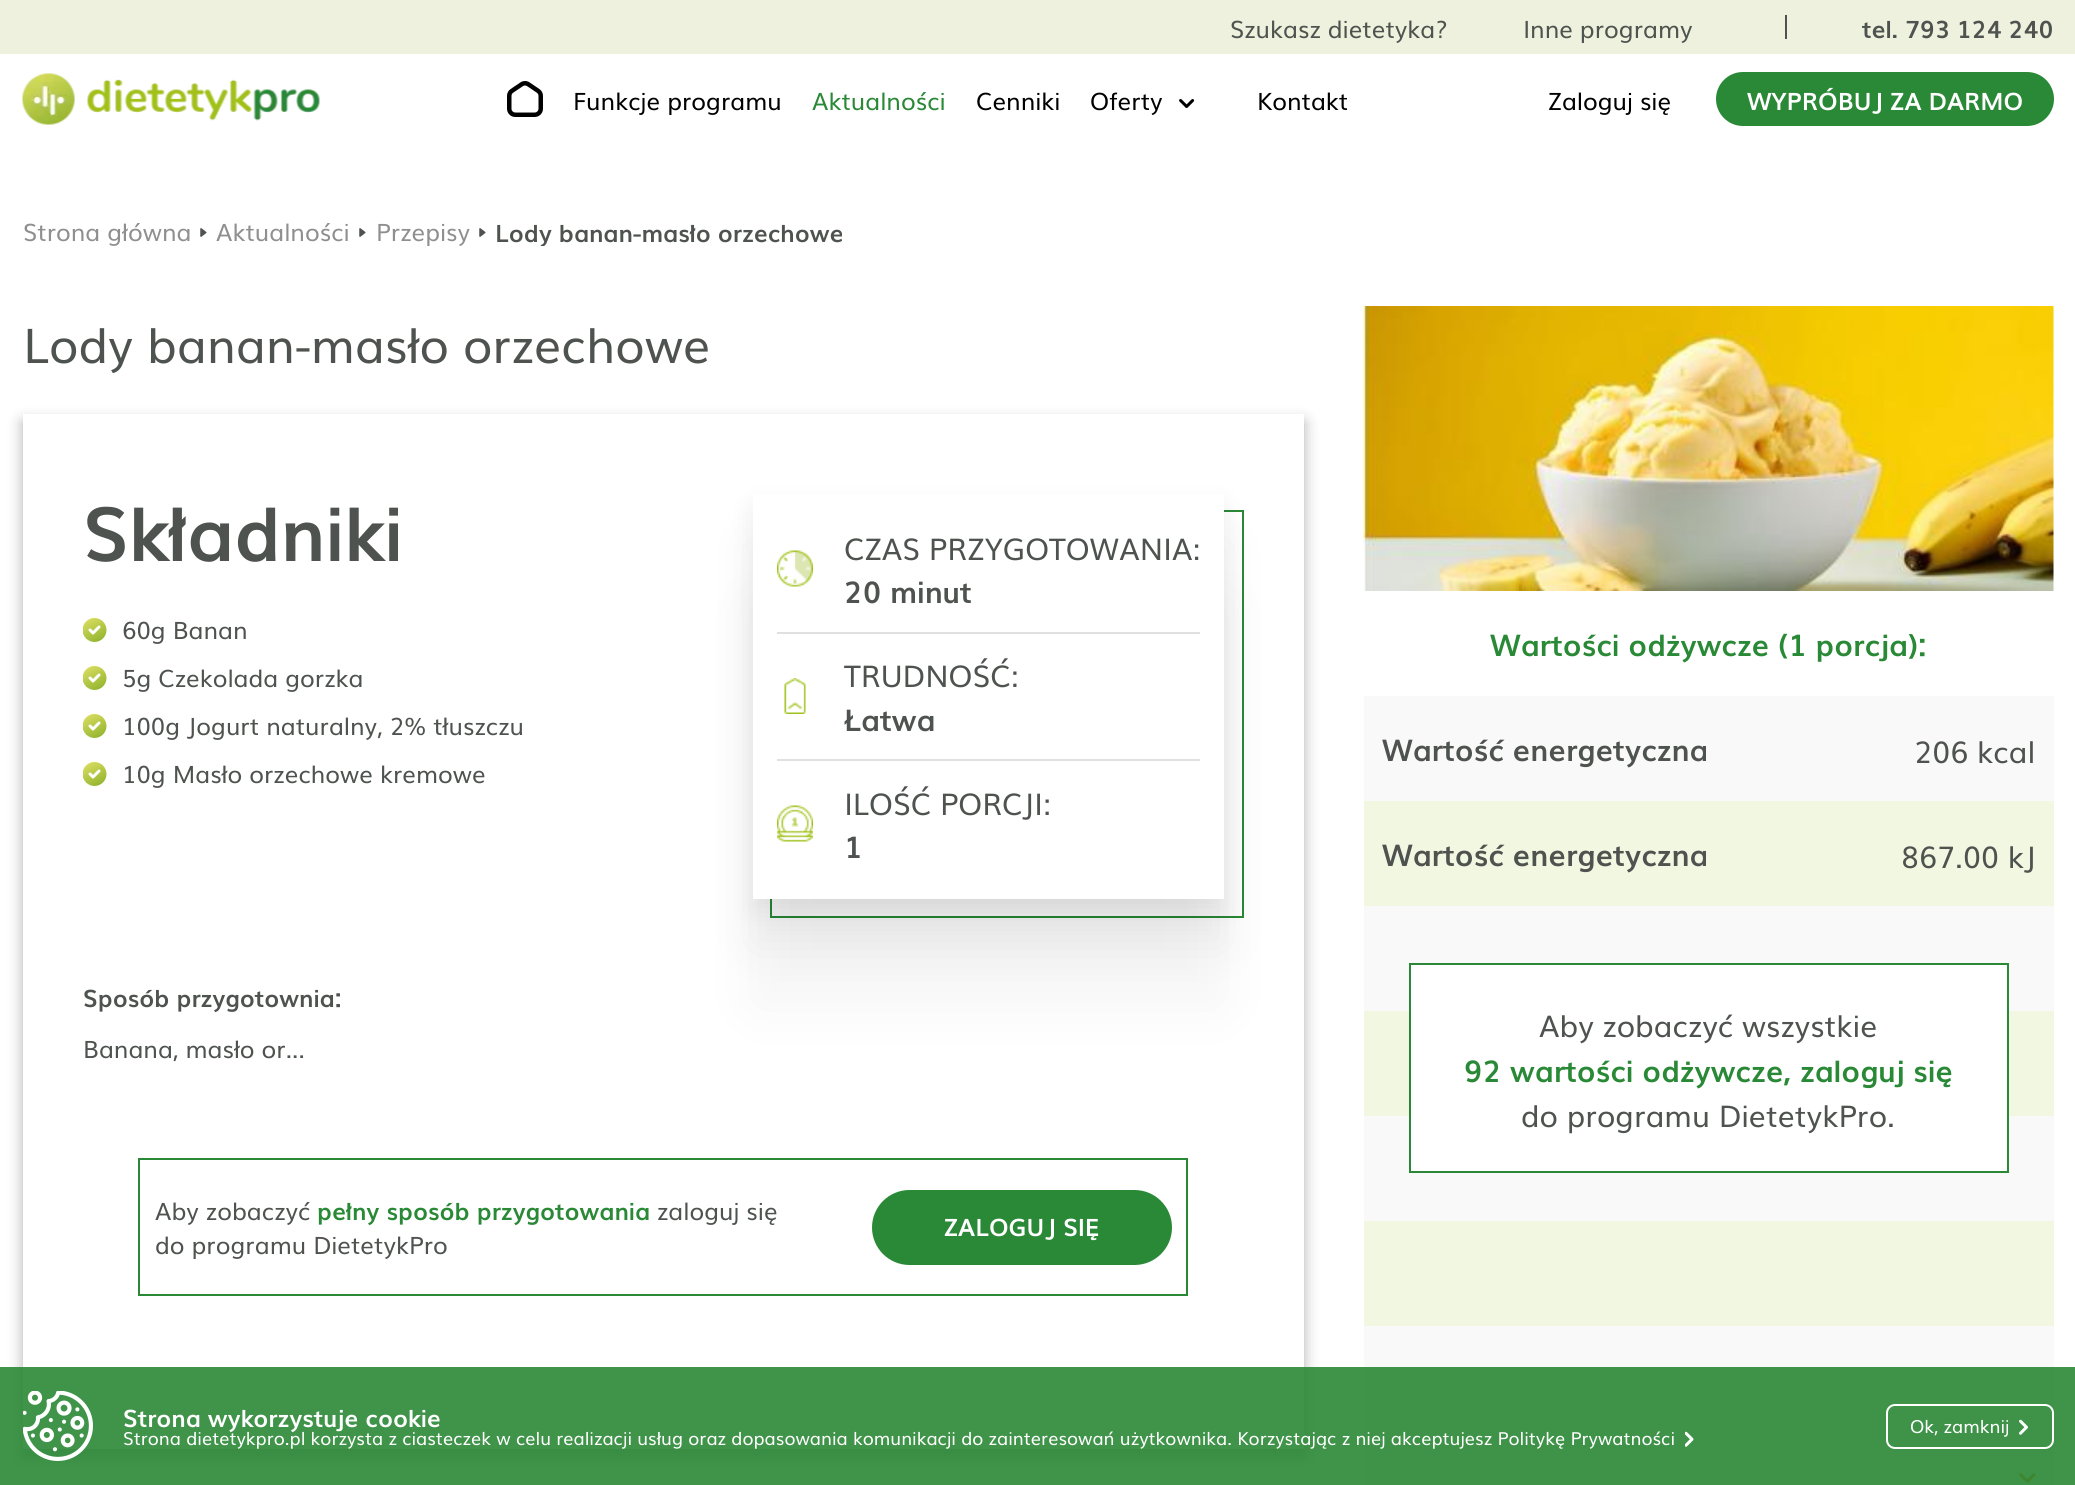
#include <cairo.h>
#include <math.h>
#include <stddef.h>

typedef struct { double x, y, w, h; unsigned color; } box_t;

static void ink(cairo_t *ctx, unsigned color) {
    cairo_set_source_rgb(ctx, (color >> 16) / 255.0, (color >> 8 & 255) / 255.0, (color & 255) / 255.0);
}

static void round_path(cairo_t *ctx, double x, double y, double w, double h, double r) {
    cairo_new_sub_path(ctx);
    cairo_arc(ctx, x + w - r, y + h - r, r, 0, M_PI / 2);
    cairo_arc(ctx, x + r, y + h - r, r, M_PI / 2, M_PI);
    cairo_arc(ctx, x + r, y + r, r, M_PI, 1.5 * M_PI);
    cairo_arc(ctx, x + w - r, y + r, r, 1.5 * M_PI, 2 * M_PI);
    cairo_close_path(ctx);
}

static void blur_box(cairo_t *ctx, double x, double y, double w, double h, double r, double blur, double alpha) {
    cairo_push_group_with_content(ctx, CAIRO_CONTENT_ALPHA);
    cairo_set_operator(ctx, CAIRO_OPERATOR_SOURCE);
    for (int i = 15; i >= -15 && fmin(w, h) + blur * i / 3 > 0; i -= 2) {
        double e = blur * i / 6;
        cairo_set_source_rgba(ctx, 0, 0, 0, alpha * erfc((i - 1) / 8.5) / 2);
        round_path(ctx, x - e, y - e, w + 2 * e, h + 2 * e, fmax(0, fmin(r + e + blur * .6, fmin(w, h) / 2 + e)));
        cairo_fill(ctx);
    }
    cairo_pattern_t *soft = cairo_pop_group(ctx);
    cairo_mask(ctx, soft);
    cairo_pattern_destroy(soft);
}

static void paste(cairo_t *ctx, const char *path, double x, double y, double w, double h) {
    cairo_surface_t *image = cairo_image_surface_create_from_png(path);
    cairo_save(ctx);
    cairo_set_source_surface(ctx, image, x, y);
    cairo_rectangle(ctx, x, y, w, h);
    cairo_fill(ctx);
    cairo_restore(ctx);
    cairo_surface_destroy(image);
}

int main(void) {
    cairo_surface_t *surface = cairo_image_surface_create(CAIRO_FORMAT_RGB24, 2075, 1485);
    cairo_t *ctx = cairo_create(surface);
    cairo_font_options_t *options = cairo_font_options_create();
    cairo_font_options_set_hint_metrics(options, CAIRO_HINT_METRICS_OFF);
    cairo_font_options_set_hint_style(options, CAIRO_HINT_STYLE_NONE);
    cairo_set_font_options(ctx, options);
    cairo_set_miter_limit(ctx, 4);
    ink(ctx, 0xFFFFFF);
    cairo_paint(ctx);
    ink(ctx, 0xEDF1DD);
    cairo_rectangle(ctx, 0, 0, 2075, 54);
    cairo_fill(ctx);
    cairo_select_font_face(ctx, "Muli", CAIRO_FONT_SLANT_NORMAL, CAIRO_FONT_WEIGHT_NORMAL);
    cairo_set_font_size(ctx, 24);
    ink(ctx, 0x4E534F);
    cairo_move_to(ctx, 1230, 38);
    cairo_show_text(ctx, "Szukasz dietetyka?");
    cairo_move_to(ctx, 1523, 38);
    cairo_show_text(ctx, "Inne programy");
    cairo_rectangle(ctx, 1785, 15, 2, 24);
    cairo_fill(ctx);
    cairo_select_font_face(ctx, "Muli", CAIRO_FONT_SLANT_NORMAL, CAIRO_FONT_WEIGHT_BOLD);
    cairo_move_to(ctx, 1862, 38);
    cairo_show_text(ctx, "tel. 793 124 240");
    paste(ctx, "media/1.png", 22, 73, 298, 52);
    paste(ctx, "media/2.png", 507, 81, 36, 36);
    cairo_select_font_face(ctx, "Muli", CAIRO_FONT_SLANT_NORMAL, CAIRO_FONT_WEIGHT_NORMAL);
    ink(ctx, 0x000000);
    cairo_move_to(ctx, 573, 110);
    cairo_show_text(ctx, "Funkcje programu");
    ink(ctx, 0x2A8936);
    cairo_move_to(ctx, 812, 110);
    cairo_show_text(ctx, "Aktualności");
    ink(ctx, 0x000000);
    cairo_move_to(ctx, 976, 110);
    cairo_show_text(ctx, "Cenniki");
    cairo_move_to(ctx, 1090, 110);
    cairo_show_text(ctx, "Oferty");
    paste(ctx, "media/3.png", 1179, 99, 16, 9);
    cairo_move_to(ctx, 1257, 110);
    cairo_show_text(ctx, "Kontakt");
    cairo_move_to(ctx, 1548, 110);
    cairo_show_text(ctx, "Zaloguj się");
    ink(ctx, 0x2A8936);
    round_path(ctx, 1716, 72, 338, 54, 27);
    cairo_fill(ctx);
    cairo_select_font_face(ctx, "Muli", CAIRO_FONT_SLANT_NORMAL, CAIRO_FONT_WEIGHT_BOLD);
    ink(ctx, 0xFFFFFF);
    cairo_move_to(ctx, 1747, 110);
    cairo_show_text(ctx, "WYPRÓBUJ ZA DARMO");
    cairo_select_font_face(ctx, "Muli", CAIRO_FONT_SLANT_NORMAL, CAIRO_FONT_WEIGHT_NORMAL);
    ink(ctx, 0x8F8F8F);
    cairo_move_to(ctx, 23, 241);
    cairo_show_text(ctx, "Strona główna");
    paste(ctx, "media/4.png", 200, 228, 7, 9);
    cairo_move_to(ctx, 216, 241);
    cairo_show_text(ctx, "Aktualności");
    paste(ctx, "media/4.png", 359, 228, 7, 9);
    cairo_move_to(ctx, 376, 241);
    cairo_show_text(ctx, "Przepisy");
    paste(ctx, "media/4.png", 479, 228, 7, 9);
    cairo_save(ctx);
    cairo_rectangle(ctx, 495, 216, 350, 30);
    cairo_clip(ctx);
    cairo_select_font_face(ctx, "Muli", CAIRO_FONT_SLANT_NORMAL, CAIRO_FONT_WEIGHT_BOLD);
    ink(ctx, 0x4E534F);
    cairo_move_to(ctx, 495, 242);
    cairo_show_text(ctx, "Lody banan-masło orzechowe");
    cairo_restore(ctx);
    cairo_set_font_size(ctx, 48);
    ink(ctx, 0x4E534F);
    cairo_move_to(ctx, 23, 363);
    cairo_show_text(ctx, "Lody banan-masło orzechowe");
    ink(ctx, 0x0D0E0E);
    blur_box(ctx, 23, 422, 1281, 1035, 0, 7.5, 0.33);
    ink(ctx, 0xFFFFFF);
    cairo_rectangle(ctx, 23, 414, 1281, 1035);
    cairo_fill(ctx);
    cairo_select_font_face(ctx, "Muli", CAIRO_FONT_SLANT_NORMAL, CAIRO_FONT_WEIGHT_BOLD);
    cairo_set_font_size(ctx, 75);
    ink(ctx, 0x4E534F);
    cairo_move_to(ctx, 83, 561);
    cairo_show_text(ctx, "Składniki");
    paste(ctx, "media/5.png", 83, 618, 24, 24);
    cairo_select_font_face(ctx, "Muli", CAIRO_FONT_SLANT_NORMAL, CAIRO_FONT_WEIGHT_NORMAL);
    cairo_set_font_size(ctx, 24);
    cairo_move_to(ctx, 122, 639);
    cairo_show_text(ctx, "60g Banan");
    paste(ctx, "media/5.png", 83, 666, 24, 24);
    cairo_move_to(ctx, 122, 687);
    cairo_show_text(ctx, "5g Czekolada gorzka");
    paste(ctx, "media/5.png", 83, 714, 24, 24);
    cairo_move_to(ctx, 122, 735);
    cairo_show_text(ctx, "100g Jogurt naturalny, 2% tłuszczu");
    paste(ctx, "media/5.png", 83, 762, 24, 24);
    cairo_move_to(ctx, 122, 783);
    cairo_show_text(ctx, "10g Masło orzechowe kremowe");
    cairo_rectangle(ctx, 771, 511, 472, 406);
    ink(ctx, 0x2A8936);
    cairo_stroke(ctx);
    ink(ctx, 0x000000);
    blur_box(ctx, 753, 602, 471, 405, 0, 32, 0.04);
    blur_box(ctx, 753, 542, 471, 405, 0, 24, 0.06);
    blur_box(ctx, 753, 506, 471, 405, 0, 13.5, 0.07);
    ink(ctx, 0xFFFFFF);
    cairo_rectangle(ctx, 753, 494, 471, 405);
    cairo_fill(ctx);
    ink(ctx, 0xE0E0E0);
    cairo_rectangle(ctx, 777, 632, 423, 2);
    cairo_fill(ctx);
    paste(ctx, "media/6.png", 777, 550, 36, 37);
    cairo_set_font_size(ctx, 30);
    ink(ctx, 0x4E534F);
    cairo_move_to(ctx, 844, 560);
    cairo_show_text(ctx, "CZAS PRZYGOTOWANIA:");
    cairo_select_font_face(ctx, "Muli", CAIRO_FONT_SLANT_NORMAL, CAIRO_FONT_WEIGHT_BOLD);
    cairo_move_to(ctx, 844, 603);
    cairo_show_text(ctx, "20 minut");
    ink(ctx, 0xE0E0E0);
    cairo_rectangle(ctx, 777, 759, 423, 2);
    cairo_fill(ctx);
    paste(ctx, "media/7.png", 784, 678, 22, 36);
    cairo_select_font_face(ctx, "Muli", CAIRO_FONT_SLANT_NORMAL, CAIRO_FONT_WEIGHT_NORMAL);
    ink(ctx, 0x4E534F);
    cairo_move_to(ctx, 844, 687);
    cairo_show_text(ctx, "TRUDNOŚĆ:");
    cairo_select_font_face(ctx, "Muli", CAIRO_FONT_SLANT_NORMAL, CAIRO_FONT_WEIGHT_BOLD);
    cairo_move_to(ctx, 844, 731);
    cairo_show_text(ctx, "Łatwa");
    paste(ctx, "media/8.png", 777, 805, 36, 37);
    cairo_select_font_face(ctx, "Muli", CAIRO_FONT_SLANT_NORMAL, CAIRO_FONT_WEIGHT_NORMAL);
    cairo_move_to(ctx, 844, 815);
    cairo_show_text(ctx, "ILOŚĆ PORCJI:");
    cairo_select_font_face(ctx, "Muli", CAIRO_FONT_SLANT_NORMAL, CAIRO_FONT_WEIGHT_BOLD);
    cairo_move_to(ctx, 844, 858);
    cairo_show_text(ctx, "1");
    cairo_set_font_size(ctx, 24);
    cairo_move_to(ctx, 83, 1007);
    cairo_show_text(ctx, "Sposób przygotownia:");
    cairo_select_font_face(ctx, "Muli", CAIRO_FONT_SLANT_NORMAL, CAIRO_FONT_WEIGHT_NORMAL);
    cairo_move_to(ctx, 83, 1058);
    cairo_show_text(ctx, "Banana, masło or...");
    cairo_rectangle(ctx, 139, 1159, 1048, 136);
    ink(ctx, 0x2A8936);
    cairo_stroke(ctx);
    ink(ctx, 0x4E534F);
    cairo_move_to(ctx, 155, 1220);
    cairo_show_text(ctx, "Aby zobaczyć");
    cairo_select_font_face(ctx, "Muli", CAIRO_FONT_SLANT_NORMAL, CAIRO_FONT_WEIGHT_BOLD);
    ink(ctx, 0x2A8936);
    cairo_move_to(ctx, 317, 1220);
    cairo_show_text(ctx, "pełny sposób przygotowania");
    cairo_select_font_face(ctx, "Muli", CAIRO_FONT_SLANT_NORMAL, CAIRO_FONT_WEIGHT_NORMAL);
    ink(ctx, 0x4E534F);
    cairo_move_to(ctx, 657, 1220);
    cairo_show_text(ctx, "zaloguj się");
    cairo_move_to(ctx, 155, 1254);
    cairo_show_text(ctx, "do programu DietetykPro");
    ink(ctx, 0x2A8936);
    round_path(ctx, 872, 1190, 300, 75, 37.5);
    cairo_fill(ctx);
    cairo_select_font_face(ctx, "Muli", CAIRO_FONT_SLANT_NORMAL, CAIRO_FONT_WEIGHT_BOLD);
    ink(ctx, 0xFFFFFF);
    cairo_move_to(ctx, 944, 1236);
    cairo_show_text(ctx, "ZALOGUJ SIĘ");
    paste(ctx, "media/9.png", 1363, 306, 691, 285);
    cairo_set_font_size(ctx, 30);
    ink(ctx, 0x2A8936);
    cairo_move_to(ctx, 1490, 656);
    cairo_show_text(ctx, "Wartości odżywcze (1 porcja):");
    ink(ctx, 0xF9F9F9);
    cairo_rectangle(ctx, 1364, 696, 690, 105);
    cairo_fill(ctx);
    ink(ctx, 0x4E534F);
    cairo_move_to(ctx, 1382, 761);
    cairo_show_text(ctx, "Wartość energetyczna");
    cairo_select_font_face(ctx, "Muli", CAIRO_FONT_SLANT_NORMAL, CAIRO_FONT_WEIGHT_NORMAL);
    cairo_move_to(ctx, 1914, 763);
    cairo_show_text(ctx, "206 kcal");
    ink(ctx, 0xF1F7E0);
    cairo_rectangle(ctx, 1364, 801, 690, 105);
    cairo_fill(ctx);
    cairo_select_font_face(ctx, "Muli", CAIRO_FONT_SLANT_NORMAL, CAIRO_FONT_WEIGHT_BOLD);
    ink(ctx, 0x4E534F);
    cairo_move_to(ctx, 1382, 866);
    cairo_show_text(ctx, "Wartość energetyczna");
    cairo_select_font_face(ctx, "Muli", CAIRO_FONT_SLANT_NORMAL, CAIRO_FONT_WEIGHT_NORMAL);
    cairo_move_to(ctx, 1901, 868);
    cairo_show_text(ctx, "867.00 kJ");
    {
        static const box_t items[] = {
            {1364, 906, 690, 105, 0xF9F9F9},
            {1364, 1011, 690, 105, 0xF1F7E0},
            {1364, 1116, 690, 105, 0xF9F9F9},
        };
        for (size_t i = 0; i < sizeof items / sizeof *items; i++) {
            ink(ctx, items[i].color);
            cairo_rectangle(ctx, items[i].x, items[i].y, items[i].w, items[i].h);
            cairo_fill(ctx);
        }
    }
    ink(ctx, 0xFFFFFF);
    cairo_rectangle(ctx, 1410, 964, 598, 208);
    cairo_fill_preserve(ctx);
    ink(ctx, 0x2A8936);
    cairo_stroke(ctx);
    ink(ctx, 0x4E534F);
    cairo_move_to(ctx, 1539, 1037);
    cairo_show_text(ctx, "Aby zobaczyć wszystkie");
    cairo_select_font_face(ctx, "Muli", CAIRO_FONT_SLANT_NORMAL, CAIRO_FONT_WEIGHT_BOLD);
    ink(ctx, 0x2A8936);
    cairo_move_to(ctx, 1464, 1082);
    cairo_show_text(ctx, "92 wartości odżywcze, zaloguj się");
    cairo_select_font_face(ctx, "Muli", CAIRO_FONT_SLANT_NORMAL, CAIRO_FONT_WEIGHT_NORMAL);
    ink(ctx, 0x4E534F);
    cairo_move_to(ctx, 1521, 1127);
    cairo_show_text(ctx, "do programu DietetykPro.");
    ink(ctx, 0xF1F7E0);
    cairo_rectangle(ctx, 1364, 1221, 690, 105);
    cairo_fill(ctx);
    ink(ctx, 0xF9F9F9);
    cairo_rectangle(ctx, 1364, 1326, 690, 159);
    cairo_fill(ctx);
    paste(ctx, "media/10.png", 2019, 1473, 17, 10);
    cairo_set_source_rgba(ctx, 0.165, 0.537, 0.212, 0.9);
    cairo_rectangle(ctx, 0, 1367, 2075, 118);
    cairo_fill(ctx);
    paste(ctx, "media/11.png", 23, 1391, 70, 70);
    cairo_select_font_face(ctx, "Muli", CAIRO_FONT_SLANT_NORMAL, CAIRO_FONT_WEIGHT_BOLD);
    cairo_set_font_size(ctx, 24);
    ink(ctx, 0xFFFFFF);
    cairo_move_to(ctx, 123, 1427);
    cairo_show_text(ctx, "Strona wykorzystuje cookie");
    cairo_select_font_face(ctx, "Muli", CAIRO_FONT_SLANT_NORMAL, CAIRO_FONT_WEIGHT_NORMAL);
    cairo_set_font_size(ctx, 18);
    cairo_move_to(ctx, 123, 1445);
    cairo_show_text(ctx, "Strona dietetykpro.pl korzysta z ciasteczek w celu realizacji usług oraz dopasowania komunikacji do zainteresowań użytkownika. Korzystając z niej akceptujesz Politykę Prywatności");
    paste(ctx, "media/12.png", 1685, 1431, 9, 16);
    round_path(ctx, 1887, 1405, 166, 43, 8);
    cairo_stroke(ctx);
    cairo_move_to(ctx, 1910, 1433);
    cairo_show_text(ctx, "Ok, zamknij");
    paste(ctx, "media/13.png", 2019, 1419, 9, 16);
    cairo_surface_write_to_png(surface, "image.png");
    cairo_font_options_destroy(options);
    cairo_destroy(ctx);
    cairo_surface_destroy(surface);
    return 0;
}
